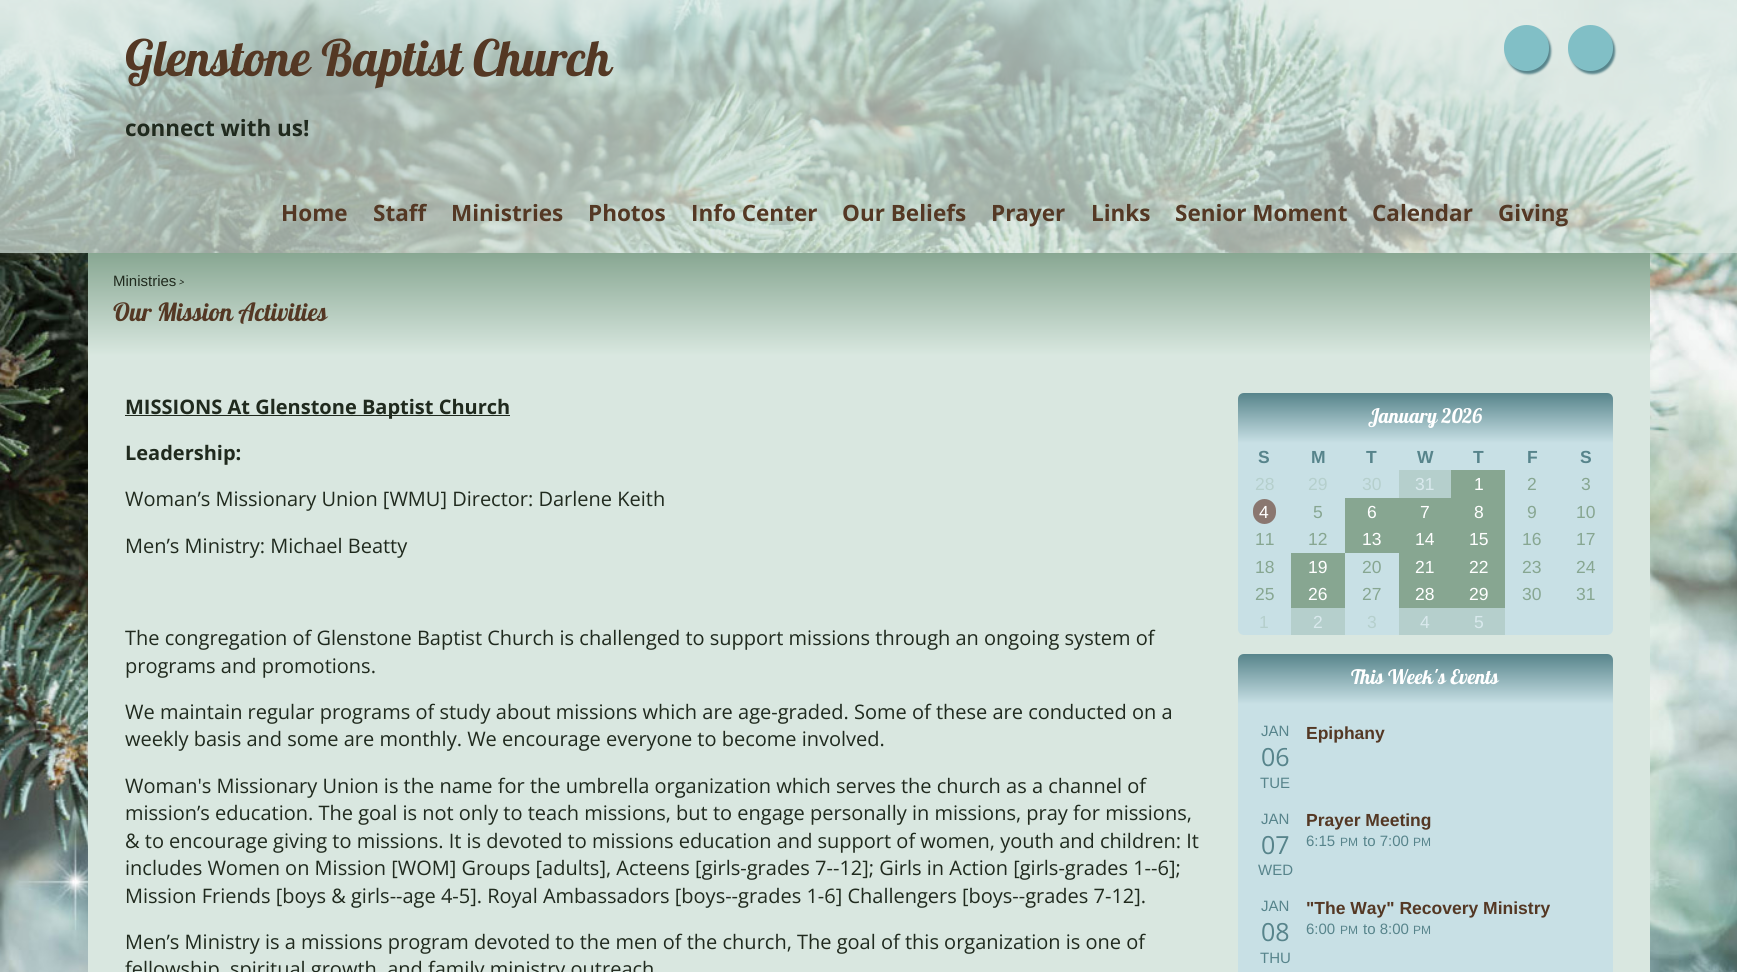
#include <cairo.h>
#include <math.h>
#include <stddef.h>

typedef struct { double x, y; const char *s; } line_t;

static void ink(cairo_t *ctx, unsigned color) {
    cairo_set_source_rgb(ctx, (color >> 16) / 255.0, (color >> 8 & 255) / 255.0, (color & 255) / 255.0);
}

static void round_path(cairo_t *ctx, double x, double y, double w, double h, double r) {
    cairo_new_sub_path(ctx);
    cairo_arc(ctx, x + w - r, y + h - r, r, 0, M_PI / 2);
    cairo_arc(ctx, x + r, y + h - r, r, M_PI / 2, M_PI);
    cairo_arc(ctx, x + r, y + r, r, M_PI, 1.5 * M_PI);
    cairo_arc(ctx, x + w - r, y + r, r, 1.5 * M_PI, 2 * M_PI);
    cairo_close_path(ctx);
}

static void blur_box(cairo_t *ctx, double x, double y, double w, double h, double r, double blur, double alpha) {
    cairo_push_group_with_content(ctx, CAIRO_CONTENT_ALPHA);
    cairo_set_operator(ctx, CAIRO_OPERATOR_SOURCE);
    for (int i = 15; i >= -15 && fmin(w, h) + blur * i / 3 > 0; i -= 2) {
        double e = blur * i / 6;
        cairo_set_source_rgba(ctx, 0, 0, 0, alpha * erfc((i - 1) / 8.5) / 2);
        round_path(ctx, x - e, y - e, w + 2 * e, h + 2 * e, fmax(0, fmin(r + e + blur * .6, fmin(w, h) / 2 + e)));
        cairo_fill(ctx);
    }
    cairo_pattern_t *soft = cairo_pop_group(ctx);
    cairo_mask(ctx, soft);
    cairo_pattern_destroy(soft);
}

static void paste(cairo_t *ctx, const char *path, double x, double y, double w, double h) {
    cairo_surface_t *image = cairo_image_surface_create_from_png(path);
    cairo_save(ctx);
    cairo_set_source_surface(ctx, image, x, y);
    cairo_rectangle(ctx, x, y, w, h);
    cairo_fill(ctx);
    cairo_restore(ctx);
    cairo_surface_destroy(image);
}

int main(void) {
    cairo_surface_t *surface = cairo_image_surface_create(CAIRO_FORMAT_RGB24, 1737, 972);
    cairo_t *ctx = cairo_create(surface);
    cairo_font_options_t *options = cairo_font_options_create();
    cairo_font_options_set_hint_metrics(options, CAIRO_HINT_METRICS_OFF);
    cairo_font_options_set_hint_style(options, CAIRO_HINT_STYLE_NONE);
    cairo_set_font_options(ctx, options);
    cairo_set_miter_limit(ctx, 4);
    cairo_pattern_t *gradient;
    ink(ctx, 0xFFFFFF);
    cairo_paint(ctx);
    paste(ctx, "media/1.png", 0, 0, 1737, 972);
    cairo_set_source_rgba(ctx, 0.851, 0.906, 0.878, 0.7);
    cairo_rectangle(ctx, 0, 0, 1737, 253);
    cairo_fill(ctx);
    cairo_select_font_face(ctx, "Galada", CAIRO_FONT_SLANT_NORMAL, CAIRO_FONT_WEIGHT_NORMAL);
    cairo_set_font_size(ctx, 50);
    ink(ctx, 0x543824);
    cairo_move_to(ctx, 125, 76);
    cairo_show_text(ctx, "Glenstone Baptist Church");
    ink(ctx, 0x57848B);
    blur_box(ctx, 1506, 28, 45, 46, 22.5, 1, 1);
    ink(ctx, 0x81BFC6);
    round_path(ctx, 1504, 25, 45, 46, 22.5);
    cairo_fill(ctx);
    ink(ctx, 0x57848B);
    blur_box(ctx, 1570, 28, 45, 46, 22.5, 1, 1);
    ink(ctx, 0x81BFC6);
    round_path(ctx, 1568, 25, 45, 46, 22.5);
    cairo_fill(ctx);
    cairo_select_font_face(ctx, "Open Sans", CAIRO_FONT_SLANT_NORMAL, CAIRO_FONT_WEIGHT_BOLD);
    cairo_set_font_size(ctx, 22.5);
    ink(ctx, 0x202A1E);
    cairo_move_to(ctx, 125, 136);
    cairo_show_text(ctx, "connect with us!");
    ink(ctx, 0x543824);
    {
        static const line_t items[] = {
            {281, 221, "Home"},
            {373, 221, "Staff"},
            {451, 221, "Ministries"},
            {588, 221, "Photos"},
            {691, 221, "Info Center"},
            {842, 221, "Our Beliefs"},
            {991, 221, "Prayer"},
            {1091, 221, "Links"},
            {1175, 221, "Senior Moment"},
            {1372, 221, "Calendar"},
            {1498, 221, "Giving"},
        };
        for (size_t i = 0; i < sizeof items / sizeof *items; i++) {
            cairo_move_to(ctx, items[i].x, items[i].y);
            cairo_show_text(ctx, items[i].s);
        }
    }
    ink(ctx, 0xD9E7E0);
    cairo_rectangle(ctx, 88, 355, 1562, 617);
    cairo_fill(ctx);
    gradient = cairo_pattern_create_linear(869, 252, 869, 355);
    cairo_pattern_add_color_stop_rgba(gradient, 0, 0.529, 0.651, 0.569, 1);
    cairo_pattern_add_color_stop_rgba(gradient, 1, 0.847, 0.906, 0.875, 1);
    cairo_set_source(ctx, gradient);
    cairo_pattern_destroy(gradient);
    cairo_rectangle(ctx, 88, 253, 1562, 102);
    cairo_fill(ctx);
    cairo_select_font_face(ctx, "Liberation Sans", CAIRO_FONT_SLANT_NORMAL, CAIRO_FONT_WEIGHT_NORMAL);
    cairo_set_font_size(ctx, 15);
    ink(ctx, 0x202A1E);
    cairo_move_to(ctx, 113, 286);
    cairo_show_text(ctx, "Ministries");
    cairo_select_font_face(ctx, "Galada", CAIRO_FONT_SLANT_NORMAL, CAIRO_FONT_WEIGHT_NORMAL);
    cairo_move_to(ctx, 179, 286);
    cairo_show_text(ctx, ">");
    cairo_set_font_size(ctx, 25);
    ink(ctx, 0x543824);
    cairo_move_to(ctx, 113, 321);
    cairo_show_text(ctx, "Our Mission Activities");
    ink(ctx, 0x202A1E);
    cairo_rectangle(ctx, 125, 415, 385, 1);
    cairo_fill(ctx);
    cairo_select_font_face(ctx, "Open Sans", CAIRO_FONT_SLANT_NORMAL, CAIRO_FONT_WEIGHT_BOLD);
    cairo_set_font_size(ctx, 20);
    cairo_move_to(ctx, 125, 414);
    cairo_show_text(ctx, "MISSIONS At Glenstone Baptist Church");
    cairo_move_to(ctx, 125, 460);
    cairo_show_text(ctx, "Leadership:");
    cairo_select_font_face(ctx, "Open Sans", CAIRO_FONT_SLANT_NORMAL, CAIRO_FONT_WEIGHT_NORMAL);
    {
        static const line_t items[] = {
            {125, 506, "Woman’s Missionary Union [WMU] Director: Darlene Keith"},
            {125, 553, "Men’s Ministry: Michael Beatty"},
            {125, 645, "The congregation of Glenstone Baptist Church is challenged to support missions through an ongoing system of"},
            {125, 673, "programs and promotions."},
            {125, 719, "We maintain regular programs of study about missions which are age-graded. Some of these are conducted on a"},
            {125, 746, "weekly basis and some are monthly. We encourage everyone to become involved."},
            {125, 793, "Woman's Missionary Union is the name for the umbrella organization which serves the church as a channel of"},
            {125, 820, "mission’s education. The goal is not only to teach missions, but to engage personally in missions, pray for missions,"},
            {125, 848, "& to encourage giving to missions. It is devoted to missions education and support of women, youth and children: It"},
            {125, 875, "includes Women on Mission [WOM] Groups [adults], Acteens [girls-grades 7--12]; Girls in Action [girls-grades 1--6];"},
            {125, 903, "Mission Friends [boys & girls--age 4-5]. Royal Ambassadors [boys--grades 1-6] Challengers [boys--grades 7-12]."},
            {125, 949, "Men’s Ministry is a missions program devoted to the men of the church, The goal of this organization is one of"},
            {125, 976, "fellowship, spiritual growth, and family ministry outreach"},
        };
        for (size_t i = 0; i < sizeof items / sizeof *items; i++) {
            cairo_move_to(ctx, items[i].x, items[i].y);
            cairo_show_text(ctx, items[i].s);
        }
    }
    gradient = cairo_pattern_create_linear(1425, 393, 1425, 443);
    cairo_pattern_add_color_stop_rgba(gradient, 0, 0.341, 0.518, 0.545, 1);
    cairo_pattern_add_color_stop_rgba(gradient, 1, 0.784, 0.878, 0.898, 1);
    cairo_set_source(ctx, gradient);
    cairo_pattern_destroy(gradient);
    cairo_new_path(ctx);
    cairo_move_to(ctx, 1244, 393);
    cairo_line_to(ctx, 1607, 393);
    cairo_curve_to(ctx, 1610.5, 393, 1613, 395.5, 1613, 399);
    cairo_line_to(ctx, 1613, 443);
    cairo_line_to(ctx, 1238, 443);
    cairo_line_to(ctx, 1238, 399);
    cairo_curve_to(ctx, 1238, 395.5, 1240.5, 393, 1244, 393);
    cairo_close_path(ctx);
    cairo_fill(ctx);
    cairo_select_font_face(ctx, "Galada", CAIRO_FONT_SLANT_NORMAL, CAIRO_FONT_WEIGHT_NORMAL);
    ink(ctx, 0xFFFFFF);
    cairo_move_to(ctx, 1368, 423);
    cairo_show_text(ctx, "January 2026");
    ink(ctx, 0xC8E0E5);
    cairo_new_path(ctx);
    cairo_move_to(ctx, 1238, 443);
    cairo_line_to(ctx, 1613, 443);
    cairo_line_to(ctx, 1613, 629);
    cairo_curve_to(ctx, 1613, 632.5, 1610.5, 635, 1607, 635);
    cairo_line_to(ctx, 1244, 635);
    cairo_curve_to(ctx, 1240.5, 635, 1238, 632.5, 1238, 629);
    cairo_close_path(ctx);
    cairo_fill(ctx);
    cairo_select_font_face(ctx, "Liberation Sans", CAIRO_FONT_SLANT_NORMAL, CAIRO_FONT_WEIGHT_BOLD);
    cairo_set_font_size(ctx, 17.5);
    ink(ctx, 0x57848B);
    {
        static const line_t items[] = {
            {1258, 463, "S"},
            {1311, 463, "M"},
            {1366, 463, "T"},
            {1417, 463, "W"},
            {1473, 463, "T"},
            {1527, 463, "F"},
            {1580, 463, "S"},
        };
        for (size_t i = 0; i < sizeof items / sizeof *items; i++) {
            cairo_move_to(ctx, items[i].x, items[i].y);
            cairo_show_text(ctx, items[i].s);
        }
    }
    cairo_select_font_face(ctx, "Liberation Sans", CAIRO_FONT_SLANT_NORMAL, CAIRO_FONT_WEIGHT_NORMAL);
    ink(ctx, 0xB5CFCC);
    {
        static const line_t items[] = {
            {1255, 490, "28"},
            {1308, 490, "29"},
            {1362, 490, "30"},
        };
        for (size_t i = 0; i < sizeof items / sizeof *items; i++) {
            cairo_move_to(ctx, items[i].x, items[i].y);
            cairo_show_text(ctx, items[i].s);
        }
    }
    cairo_rectangle(ctx, 1399, 470, 52, 28);
    cairo_fill(ctx);
    ink(ctx, 0xD9E9ED);
    cairo_move_to(ctx, 1415, 490);
    cairo_show_text(ctx, "31");
    ink(ctx, 0x87A691);
    cairo_rectangle(ctx, 1451, 470, 54, 28);
    cairo_fill(ctx);
    ink(ctx, 0xFFFFFF);
    cairo_move_to(ctx, 1474, 490);
    cairo_show_text(ctx, "1");
    ink(ctx, 0x87A691);
    cairo_move_to(ctx, 1527, 490);
    cairo_show_text(ctx, "2");
    cairo_move_to(ctx, 1581, 490);
    cairo_show_text(ctx, "3");
    ink(ctx, 0x8A7770);
    round_path(ctx, 1253, 499, 23, 25, 11.5);
    cairo_fill(ctx);
    ink(ctx, 0xFFFFFF);
    cairo_move_to(ctx, 1259, 518);
    cairo_show_text(ctx, "4");
    ink(ctx, 0x87A691);
    cairo_move_to(ctx, 1313, 518);
    cairo_show_text(ctx, "5");
    cairo_rectangle(ctx, 1345, 498, 160, 27);
    cairo_fill(ctx);
    ink(ctx, 0xFFFFFF);
    {
        static const line_t items[] = {
            {1367, 518, "6"},
            {1420, 518, "7"},
            {1474, 518, "8"},
        };
        for (size_t i = 0; i < sizeof items / sizeof *items; i++) {
            cairo_move_to(ctx, items[i].x, items[i].y);
            cairo_show_text(ctx, items[i].s);
        }
    }
    ink(ctx, 0x87A691);
    {
        static const line_t items[] = {
            {1527, 518, "9"},
            {1576, 518, "10"},
            {1255, 545, "11"},
            {1308, 545, "12"},
        };
        for (size_t i = 0; i < sizeof items / sizeof *items; i++) {
            cairo_move_to(ctx, items[i].x, items[i].y);
            cairo_show_text(ctx, items[i].s);
        }
    }
    cairo_rectangle(ctx, 1345, 525, 160, 28);
    cairo_fill(ctx);
    ink(ctx, 0xFFFFFF);
    {
        static const line_t items[] = {
            {1362, 545, "13"},
            {1415, 545, "14"},
            {1469, 545, "15"},
        };
        for (size_t i = 0; i < sizeof items / sizeof *items; i++) {
            cairo_move_to(ctx, items[i].x, items[i].y);
            cairo_show_text(ctx, items[i].s);
        }
    }
    ink(ctx, 0x87A691);
    {
        static const line_t items[] = {
            {1522, 545, "16"},
            {1576, 545, "17"},
            {1255, 573, "18"},
        };
        for (size_t i = 0; i < sizeof items / sizeof *items; i++) {
            cairo_move_to(ctx, items[i].x, items[i].y);
            cairo_show_text(ctx, items[i].s);
        }
    }
    cairo_rectangle(ctx, 1291, 553, 54, 55);
    cairo_fill(ctx);
    ink(ctx, 0xFFFFFF);
    cairo_move_to(ctx, 1308, 573);
    cairo_show_text(ctx, "19");
    ink(ctx, 0x87A691);
    cairo_move_to(ctx, 1362, 573);
    cairo_show_text(ctx, "20");
    cairo_rectangle(ctx, 1399, 553, 106, 27);
    cairo_fill(ctx);
    ink(ctx, 0xFFFFFF);
    cairo_move_to(ctx, 1415, 573);
    cairo_show_text(ctx, "21");
    cairo_move_to(ctx, 1469, 573);
    cairo_show_text(ctx, "22");
    ink(ctx, 0x87A691);
    {
        static const line_t items[] = {
            {1522, 573, "23"},
            {1576, 573, "24"},
            {1255, 600, "25"},
        };
        for (size_t i = 0; i < sizeof items / sizeof *items; i++) {
            cairo_move_to(ctx, items[i].x, items[i].y);
            cairo_show_text(ctx, items[i].s);
        }
    }
    ink(ctx, 0xFFFFFF);
    cairo_move_to(ctx, 1308, 600);
    cairo_show_text(ctx, "26");
    ink(ctx, 0x87A691);
    cairo_move_to(ctx, 1362, 600);
    cairo_show_text(ctx, "27");
    cairo_rectangle(ctx, 1399, 580, 106, 28);
    cairo_fill(ctx);
    ink(ctx, 0xFFFFFF);
    cairo_move_to(ctx, 1415, 600);
    cairo_show_text(ctx, "28");
    cairo_move_to(ctx, 1469, 600);
    cairo_show_text(ctx, "29");
    ink(ctx, 0x87A691);
    cairo_move_to(ctx, 1522, 600);
    cairo_show_text(ctx, "30");
    cairo_move_to(ctx, 1576, 600);
    cairo_show_text(ctx, "31");
    ink(ctx, 0xB5CFCC);
    cairo_move_to(ctx, 1259, 628);
    cairo_show_text(ctx, "1");
    cairo_rectangle(ctx, 1291, 608, 54, 27);
    cairo_fill(ctx);
    ink(ctx, 0xD9E9ED);
    cairo_move_to(ctx, 1313, 628);
    cairo_show_text(ctx, "2");
    ink(ctx, 0xB5CFCC);
    cairo_move_to(ctx, 1367, 628);
    cairo_show_text(ctx, "3");
    cairo_rectangle(ctx, 1399, 608, 106, 27);
    cairo_fill(ctx);
    ink(ctx, 0xD9E9ED);
    cairo_move_to(ctx, 1420, 628);
    cairo_show_text(ctx, "4");
    cairo_move_to(ctx, 1474, 628);
    cairo_show_text(ctx, "5");
    gradient = cairo_pattern_create_linear(1425, 654, 1425, 704);
    cairo_pattern_add_color_stop_rgba(gradient, 0, 0.341, 0.518, 0.545, 1);
    cairo_pattern_add_color_stop_rgba(gradient, 1, 0.784, 0.878, 0.898, 1);
    cairo_set_source(ctx, gradient);
    cairo_pattern_destroy(gradient);
    cairo_new_path(ctx);
    cairo_move_to(ctx, 1244, 654);
    cairo_line_to(ctx, 1607, 654);
    cairo_curve_to(ctx, 1610.5, 654, 1613, 656.5, 1613, 660);
    cairo_line_to(ctx, 1613, 704);
    cairo_line_to(ctx, 1238, 704);
    cairo_line_to(ctx, 1238, 660);
    cairo_curve_to(ctx, 1238, 656.5, 1240.5, 654, 1244, 654);
    cairo_close_path(ctx);
    cairo_fill(ctx);
    cairo_select_font_face(ctx, "Galada", CAIRO_FONT_SLANT_NORMAL, CAIRO_FONT_WEIGHT_NORMAL);
    cairo_set_font_size(ctx, 20);
    ink(ctx, 0xFFFFFF);
    cairo_move_to(ctx, 1351, 684);
    cairo_show_text(ctx, "This Week's Events");
    ink(ctx, 0xC8E0E5);
    cairo_rectangle(ctx, 1238, 704, 375, 268);
    cairo_fill(ctx);
    cairo_select_font_face(ctx, "Liberation Sans", CAIRO_FONT_SLANT_NORMAL, CAIRO_FONT_WEIGHT_NORMAL);
    cairo_set_font_size(ctx, 15);
    ink(ctx, 0x57848B);
    cairo_move_to(ctx, 1261, 736);
    cairo_show_text(ctx, "JAN");
    cairo_select_font_face(ctx, "Open Sans", CAIRO_FONT_SLANT_NORMAL, CAIRO_FONT_WEIGHT_NORMAL);
    cairo_set_font_size(ctx, 25);
    cairo_move_to(ctx, 1261, 766);
    cairo_show_text(ctx, "06");
    cairo_select_font_face(ctx, "Liberation Sans", CAIRO_FONT_SLANT_NORMAL, CAIRO_FONT_WEIGHT_NORMAL);
    cairo_set_font_size(ctx, 15);
    cairo_move_to(ctx, 1260, 788);
    cairo_show_text(ctx, "TUE");
    cairo_select_font_face(ctx, "Liberation Sans", CAIRO_FONT_SLANT_NORMAL, CAIRO_FONT_WEIGHT_BOLD);
    cairo_set_font_size(ctx, 17.5);
    ink(ctx, 0x543824);
    cairo_move_to(ctx, 1306, 739);
    cairo_show_text(ctx, "Epiphany");
    cairo_select_font_face(ctx, "Liberation Sans", CAIRO_FONT_SLANT_NORMAL, CAIRO_FONT_WEIGHT_NORMAL);
    cairo_set_font_size(ctx, 15);
    ink(ctx, 0x57848B);
    cairo_move_to(ctx, 1261, 824);
    cairo_show_text(ctx, "JAN");
    cairo_select_font_face(ctx, "Open Sans", CAIRO_FONT_SLANT_NORMAL, CAIRO_FONT_WEIGHT_NORMAL);
    cairo_set_font_size(ctx, 25);
    cairo_move_to(ctx, 1261, 854);
    cairo_show_text(ctx, "07");
    cairo_select_font_face(ctx, "Liberation Sans", CAIRO_FONT_SLANT_NORMAL, CAIRO_FONT_WEIGHT_NORMAL);
    cairo_set_font_size(ctx, 15);
    cairo_move_to(ctx, 1258, 875);
    cairo_show_text(ctx, "WED");
    cairo_select_font_face(ctx, "Liberation Sans", CAIRO_FONT_SLANT_NORMAL, CAIRO_FONT_WEIGHT_BOLD);
    cairo_set_font_size(ctx, 17.5);
    ink(ctx, 0x543824);
    cairo_move_to(ctx, 1306, 826);
    cairo_show_text(ctx, "Prayer Meeting");
    cairo_select_font_face(ctx, "Liberation Sans", CAIRO_FONT_SLANT_NORMAL, CAIRO_FONT_WEIGHT_NORMAL);
    cairo_set_font_size(ctx, 15);
    ink(ctx, 0x57848B);
    cairo_move_to(ctx, 1306, 846);
    cairo_show_text(ctx, "6:15");
    cairo_set_font_size(ctx, 12);
    cairo_move_to(ctx, 1340, 846);
    cairo_show_text(ctx, "PM");
    cairo_set_font_size(ctx, 15);
    cairo_move_to(ctx, 1363, 846);
    cairo_show_text(ctx, "to 7:00");
    cairo_set_font_size(ctx, 12);
    cairo_move_to(ctx, 1413, 846);
    cairo_show_text(ctx, "PM");
    cairo_set_font_size(ctx, 15);
    cairo_move_to(ctx, 1261, 911);
    cairo_show_text(ctx, "JAN");
    cairo_select_font_face(ctx, "Open Sans", CAIRO_FONT_SLANT_NORMAL, CAIRO_FONT_WEIGHT_NORMAL);
    cairo_set_font_size(ctx, 25);
    cairo_move_to(ctx, 1261, 941);
    cairo_show_text(ctx, "08");
    cairo_select_font_face(ctx, "Liberation Sans", CAIRO_FONT_SLANT_NORMAL, CAIRO_FONT_WEIGHT_NORMAL);
    cairo_set_font_size(ctx, 15);
    cairo_move_to(ctx, 1260, 963);
    cairo_show_text(ctx, "THU");
    cairo_select_font_face(ctx, "Liberation Sans", CAIRO_FONT_SLANT_NORMAL, CAIRO_FONT_WEIGHT_BOLD);
    cairo_set_font_size(ctx, 17.5);
    ink(ctx, 0x543824);
    cairo_move_to(ctx, 1306, 914);
    cairo_show_text(ctx, "\"The Way\" Recovery Ministry");
    cairo_select_font_face(ctx, "Liberation Sans", CAIRO_FONT_SLANT_NORMAL, CAIRO_FONT_WEIGHT_NORMAL);
    cairo_set_font_size(ctx, 15);
    ink(ctx, 0x57848B);
    cairo_move_to(ctx, 1306, 934);
    cairo_show_text(ctx, "6:00");
    cairo_set_font_size(ctx, 12);
    cairo_move_to(ctx, 1340, 934);
    cairo_show_text(ctx, "PM");
    cairo_set_font_size(ctx, 15);
    cairo_move_to(ctx, 1363, 934);
    cairo_show_text(ctx, "to 8:00");
    cairo_set_font_size(ctx, 12);
    cairo_move_to(ctx, 1413, 934);
    cairo_show_text(ctx, "PM");
    cairo_surface_write_to_png(surface, "image.png");
    cairo_font_options_destroy(options);
    cairo_destroy(ctx);
    cairo_surface_destroy(surface);
    return 0;
}
